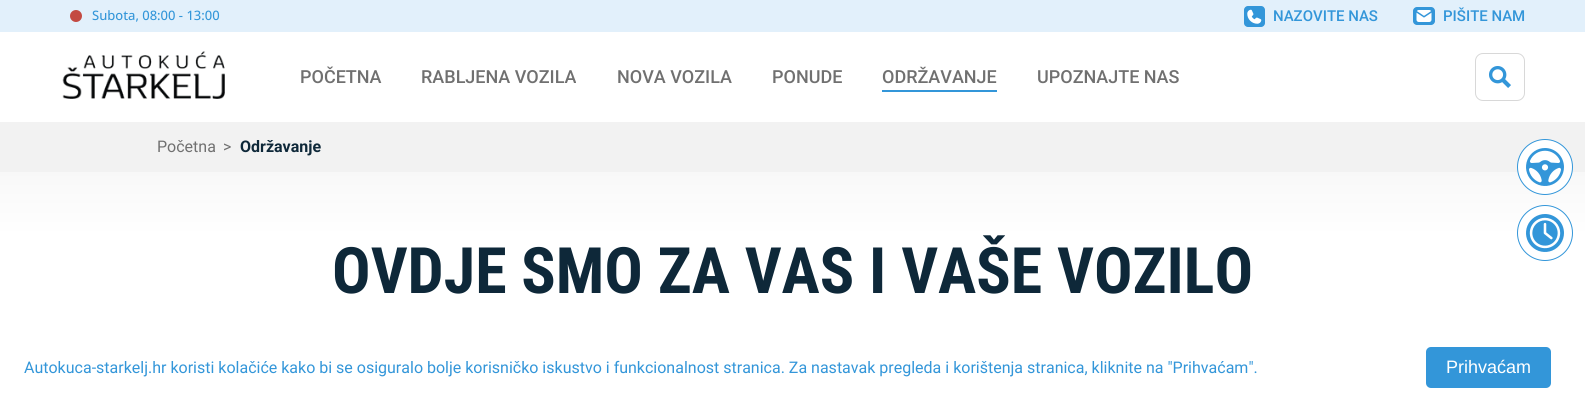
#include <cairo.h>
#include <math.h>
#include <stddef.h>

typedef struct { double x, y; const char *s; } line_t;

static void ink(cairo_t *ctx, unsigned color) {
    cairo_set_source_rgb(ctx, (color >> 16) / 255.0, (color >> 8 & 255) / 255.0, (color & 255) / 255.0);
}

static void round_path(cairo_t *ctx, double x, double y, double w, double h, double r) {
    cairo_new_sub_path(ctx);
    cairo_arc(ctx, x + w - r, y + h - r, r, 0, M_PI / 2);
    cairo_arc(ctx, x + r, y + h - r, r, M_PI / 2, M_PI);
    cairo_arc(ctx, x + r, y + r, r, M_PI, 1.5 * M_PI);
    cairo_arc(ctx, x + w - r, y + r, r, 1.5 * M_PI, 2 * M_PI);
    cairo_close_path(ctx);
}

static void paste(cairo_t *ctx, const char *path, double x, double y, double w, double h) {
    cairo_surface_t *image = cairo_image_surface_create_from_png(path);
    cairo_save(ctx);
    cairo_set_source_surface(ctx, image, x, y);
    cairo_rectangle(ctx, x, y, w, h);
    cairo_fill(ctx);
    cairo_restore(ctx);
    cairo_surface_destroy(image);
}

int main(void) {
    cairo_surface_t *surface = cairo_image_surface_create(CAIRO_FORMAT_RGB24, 1585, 410);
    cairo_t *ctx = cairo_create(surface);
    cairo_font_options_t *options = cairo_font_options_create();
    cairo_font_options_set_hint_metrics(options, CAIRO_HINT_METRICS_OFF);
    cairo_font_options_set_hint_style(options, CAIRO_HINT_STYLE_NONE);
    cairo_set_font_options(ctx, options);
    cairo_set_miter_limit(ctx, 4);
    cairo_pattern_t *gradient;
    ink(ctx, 0xE2F0FB);
    cairo_paint(ctx);
    ink(ctx, 0xC34A42);
    cairo_arc(ctx, 76, 16, 6, 0, 2 * M_PI);
    cairo_fill(ctx);
    cairo_select_font_face(ctx, "Open Sans Medium", CAIRO_FONT_SLANT_NORMAL, CAIRO_FONT_WEIGHT_NORMAL);
    cairo_set_font_size(ctx, 13);
    ink(ctx, 0x3396D9);
    cairo_move_to(ctx, 92, 20);
    cairo_show_text(ctx, "Subota, 08:00 - 13:00");
    round_path(ctx, 1244, 6, 21, 21, 4);
    cairo_fill(ctx);
    paste(ctx, "media/1.png", 1247, 9, 15, 15);
    cairo_select_font_face(ctx, "Roboto Medium", CAIRO_FONT_SLANT_NORMAL, CAIRO_FONT_WEIGHT_NORMAL);
    cairo_set_font_size(ctx, 15);
    cairo_move_to(ctx, 1273, 21);
    cairo_show_text(ctx, "NAZOVITE NAS");
    round_path(ctx, 1413, 7, 22, 18, 4);
    cairo_fill(ctx);
    paste(ctx, "media/2.png", 1416, 10, 16, 12);
    cairo_move_to(ctx, 1443, 21);
    cairo_show_text(ctx, "PIŠITE NAM");
    ink(ctx, 0xFFFFFF);
    cairo_rectangle(ctx, 0, 32, 1585, 90);
    cairo_fill(ctx);
    paste(ctx, "media/3.png", 62, 51, 163, 48);
    cairo_set_font_size(ctx, 18);
    ink(ctx, 0x707070);
    {
        static const line_t items[] = {
            {300, 83, "POČETNA"},
            {421, 83, "RABLJENA VOZILA"},
            {617, 83, "NOVA VOZILA"},
            {772, 83, "PONUDE"},
            {882, 83, "ODRŽAVANJE"},
        };
        for (size_t i = 0; i < sizeof items / sizeof *items; i++) {
            cairo_move_to(ctx, items[i].x, items[i].y);
            cairo_show_text(ctx, items[i].s);
        }
    }
    ink(ctx, 0x3396D9);
    cairo_rectangle(ctx, 882, 90, 115, 2);
    cairo_fill(ctx);
    ink(ctx, 0x707070);
    cairo_move_to(ctx, 1037, 83);
    cairo_show_text(ctx, "UPOZNAJTE NAS");
    round_path(ctx, 1475.5, 53.5, 49, 47, 7.5);
    ink(ctx, 0xD8D8D8);
    cairo_set_line_width(ctx, 1);
    cairo_stroke(ctx);
    paste(ctx, "media/4.png", 1489, 66, 22, 22);
    ink(ctx, 0xFFFFFF);
    cairo_rectangle(ctx, 0, 236, 1585, 174);
    cairo_fill(ctx);
    ink(ctx, 0xF2F2F2);
    cairo_rectangle(ctx, 0, 122, 1585, 50);
    cairo_fill(ctx);
    cairo_select_font_face(ctx, "Roboto", CAIRO_FONT_SLANT_NORMAL, CAIRO_FONT_WEIGHT_NORMAL);
    cairo_set_font_size(ctx, 16);
    ink(ctx, 0x707070);
    cairo_move_to(ctx, 157, 152);
    cairo_show_text(ctx, "Početna");
    cairo_move_to(ctx, 223, 152);
    cairo_show_text(ctx, ">");
    cairo_select_font_face(ctx, "Roboto", CAIRO_FONT_SLANT_NORMAL, CAIRO_FONT_WEIGHT_BOLD);
    ink(ctx, 0x0E2839);
    cairo_move_to(ctx, 240, 152);
    cairo_show_text(ctx, "Održavanje");
    gradient = cairo_pattern_create_linear(793, 172, 793, 236);
    cairo_pattern_add_color_stop_rgba(gradient, 0, 0.973, 0.973, 0.973, 1);
    cairo_pattern_add_color_stop_rgba(gradient, 1, 1, 1, 1, 1);
    cairo_set_source(ctx, gradient);
    cairo_pattern_destroy(gradient);
    cairo_rectangle(ctx, 0, 172, 1585, 64);
    cairo_fill(ctx);
    ink(ctx, 0xFFFFFF);
    cairo_arc(ctx, 1545, 167, 27.5, 0, 2 * M_PI);
    cairo_fill_preserve(ctx);
    ink(ctx, 0x3396D9);
    cairo_stroke(ctx);
    paste(ctx, "media/5.png", 1526, 148, 38, 38);
    ink(ctx, 0xFFFFFF);
    cairo_arc(ctx, 1545, 233, 27.5, 0, 2 * M_PI);
    cairo_fill_preserve(ctx);
    ink(ctx, 0x3396D9);
    cairo_stroke(ctx);
    paste(ctx, "media/6.png", 1526, 214, 38, 38);
    cairo_select_font_face(ctx, "Roboto Condensed", CAIRO_FONT_SLANT_NORMAL, CAIRO_FONT_WEIGHT_BOLD);
    cairo_set_font_size(ctx, 64);
    ink(ctx, 0x0E2839);
    cairo_move_to(ctx, 332, 293);
    cairo_show_text(ctx, "OVDJE SMO ZA VAS I VAŠE VOZILO");
    cairo_select_font_face(ctx, "Roboto", CAIRO_FONT_SLANT_NORMAL, CAIRO_FONT_WEIGHT_NORMAL);
    cairo_set_font_size(ctx, 16);
    ink(ctx, 0x3396D9);
    cairo_move_to(ctx, 24, 373);
    cairo_show_text(ctx, "Autokuca-starkelj.hr koristi kolačiće kako bi se osiguralo bolje korisničko iskustvo i funkcionalnost stranica. Za nastavak pregleda i korištenja stranica, kliknite na \"Prihvaćam\".");
    round_path(ctx, 1426, 347, 125, 41, 5);
    cairo_fill(ctx);
    cairo_select_font_face(ctx, "Liberation Sans", CAIRO_FONT_SLANT_NORMAL, CAIRO_FONT_WEIGHT_NORMAL);
    cairo_set_font_size(ctx, 18);
    ink(ctx, 0xFFFFFF);
    cairo_move_to(ctx, 1446, 373);
    cairo_show_text(ctx, "Prihvaćam");
    cairo_surface_write_to_png(surface, "image.png");
    cairo_font_options_destroy(options);
    cairo_destroy(ctx);
    cairo_surface_destroy(surface);
    return 0;
}
